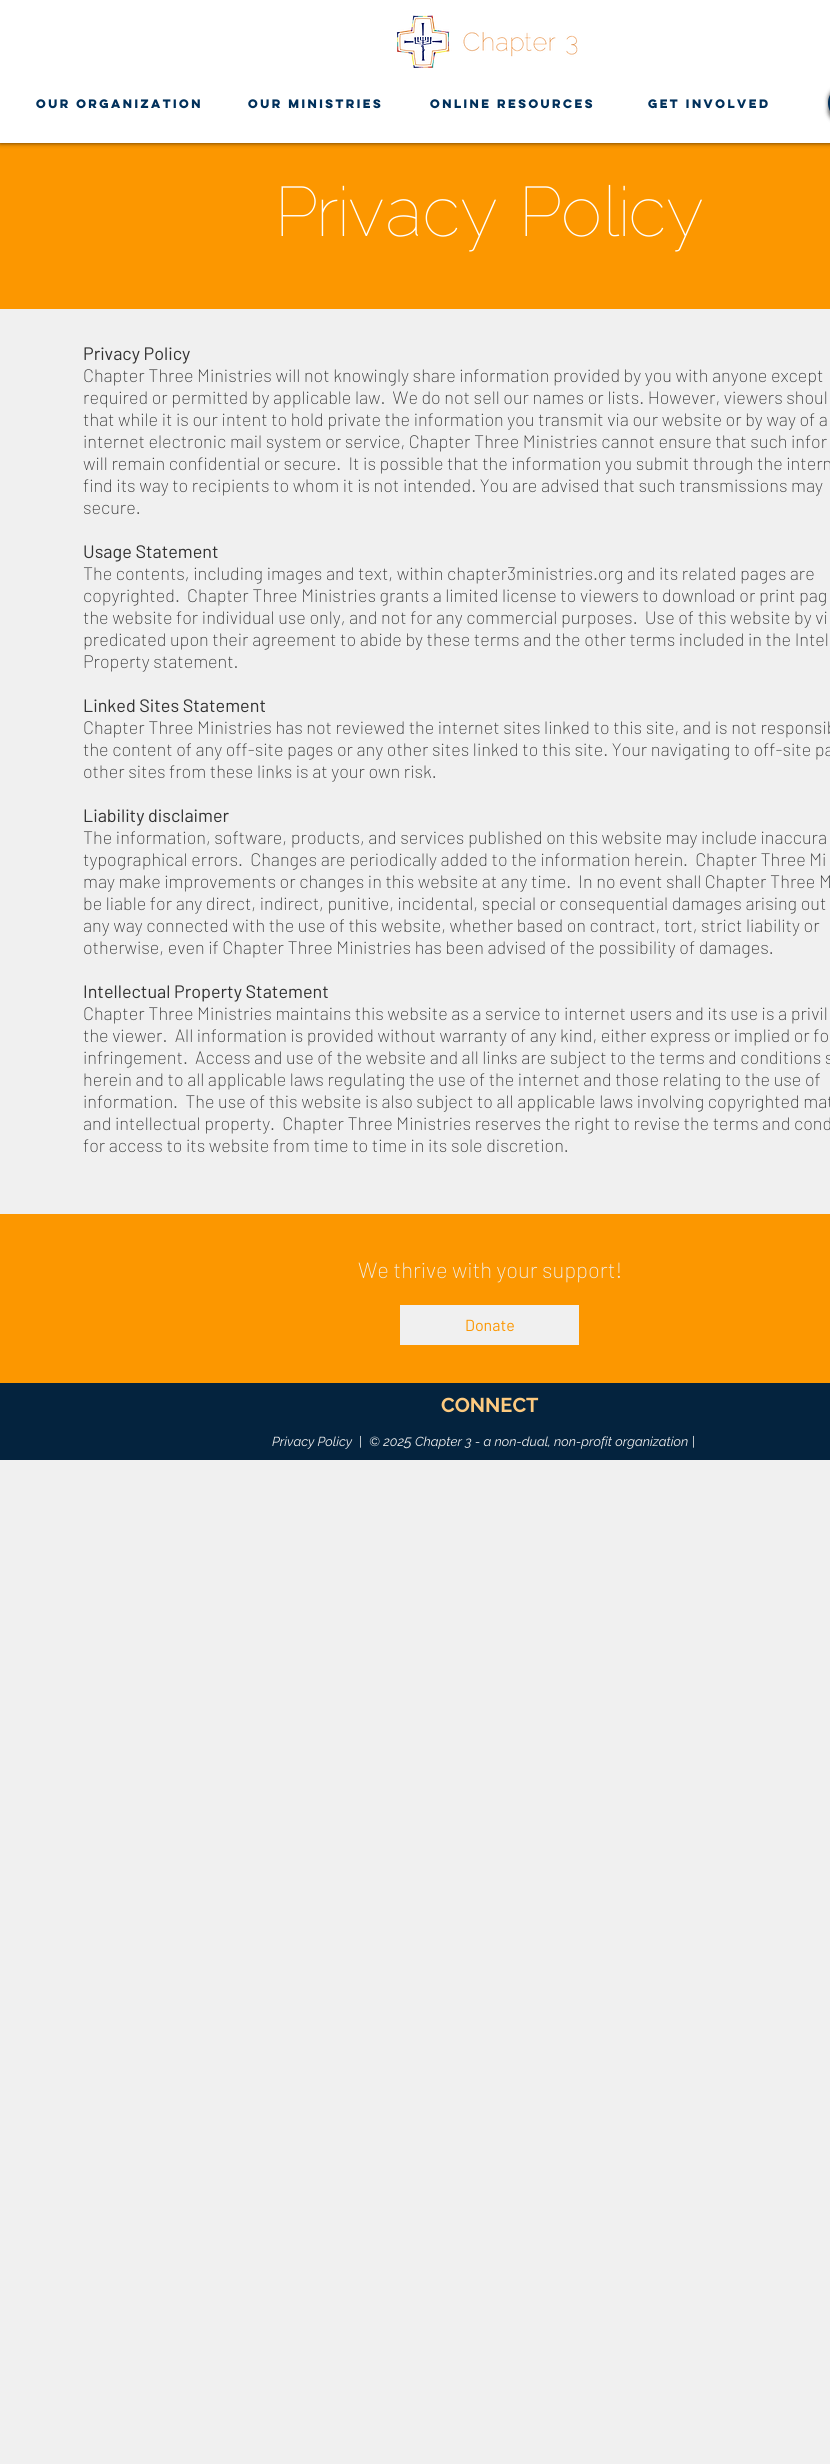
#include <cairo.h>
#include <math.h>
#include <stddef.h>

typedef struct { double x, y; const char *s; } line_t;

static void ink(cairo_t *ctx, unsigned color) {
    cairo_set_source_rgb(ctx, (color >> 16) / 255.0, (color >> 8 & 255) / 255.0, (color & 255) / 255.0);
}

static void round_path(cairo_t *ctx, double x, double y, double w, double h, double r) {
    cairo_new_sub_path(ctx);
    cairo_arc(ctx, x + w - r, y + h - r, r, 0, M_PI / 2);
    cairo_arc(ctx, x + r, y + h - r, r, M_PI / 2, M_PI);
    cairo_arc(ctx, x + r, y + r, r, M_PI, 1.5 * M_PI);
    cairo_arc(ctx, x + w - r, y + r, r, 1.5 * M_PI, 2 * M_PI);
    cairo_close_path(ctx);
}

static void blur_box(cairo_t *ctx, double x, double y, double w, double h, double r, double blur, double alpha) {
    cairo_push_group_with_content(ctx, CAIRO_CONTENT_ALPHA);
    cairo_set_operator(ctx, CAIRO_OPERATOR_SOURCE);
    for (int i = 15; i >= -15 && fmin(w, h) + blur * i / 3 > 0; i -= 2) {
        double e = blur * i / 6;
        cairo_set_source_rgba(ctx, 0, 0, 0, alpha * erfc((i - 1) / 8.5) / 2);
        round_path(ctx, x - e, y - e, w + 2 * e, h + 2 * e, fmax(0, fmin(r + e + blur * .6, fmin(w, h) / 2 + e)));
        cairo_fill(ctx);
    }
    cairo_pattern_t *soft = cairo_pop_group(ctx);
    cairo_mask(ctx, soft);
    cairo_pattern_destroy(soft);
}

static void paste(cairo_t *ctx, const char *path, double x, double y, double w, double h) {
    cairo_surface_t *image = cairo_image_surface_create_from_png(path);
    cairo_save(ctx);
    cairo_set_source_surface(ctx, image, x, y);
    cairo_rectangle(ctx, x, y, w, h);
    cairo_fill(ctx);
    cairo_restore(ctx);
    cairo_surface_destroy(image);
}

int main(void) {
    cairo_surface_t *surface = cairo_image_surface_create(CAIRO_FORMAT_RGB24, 830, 2464);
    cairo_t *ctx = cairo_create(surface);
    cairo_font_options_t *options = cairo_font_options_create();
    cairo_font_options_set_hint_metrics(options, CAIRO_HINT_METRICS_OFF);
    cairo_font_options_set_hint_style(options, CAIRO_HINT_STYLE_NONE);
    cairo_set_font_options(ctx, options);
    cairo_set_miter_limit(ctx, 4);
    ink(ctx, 0xF0F0F0);
    cairo_paint(ctx);
    ink(ctx, 0xFC9700);
    cairo_rectangle(ctx, 0, 143, 830, 166);
    cairo_fill(ctx);
    ink(ctx, 0x000000);
    blur_box(ctx, 0, 0, 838, 143, 0, 2.5, 0.7);
    ink(ctx, 0xFFFFFF);
    cairo_rectangle(ctx, 0, 0, 830, 143);
    cairo_fill(ctx);
    paste(ctx, "media/1.png", 396, 15, 182, 53);
    cairo_select_font_face(ctx, "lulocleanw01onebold", CAIRO_FONT_SLANT_NORMAL, CAIRO_FONT_WEIGHT_BOLD);
    cairo_set_font_size(ctx, 11);
    ink(ctx, 0x00305B);
    {
        static const line_t items[] = {
            {36, 108, "Our Organization"},
            {248, 108, "Our Ministries"},
            {430, 108, "Online Resources"},
            {648, 108, "Get Involved"},
        };
        for (size_t i = 0; i < sizeof items / sizeof *items; i++) {
            cairo_move_to(ctx, items[i].x, items[i].y);
            cairo_show_text(ctx, items[i].s);
        }
    }
    ink(ctx, 0x000000);
    blur_box(ctx, 828, 88, 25, 34, 17, 2, 0.6);
    ink(ctx, 0x00305B);
    round_path(ctx, 828, 86, 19, 34, 17);
    cairo_fill(ctx);
    cairo_select_font_face(ctx, "Raleway Thin", CAIRO_FONT_SLANT_NORMAL, CAIRO_FONT_WEIGHT_NORMAL);
    cairo_set_font_size(ctx, 70);
    ink(ctx, 0xFFFFFF);
    cairo_move_to(ctx, 276, 236);
    cairo_show_text(ctx, "Privacy Policy");
    cairo_select_font_face(ctx, "Barlow", CAIRO_FONT_SLANT_NORMAL, CAIRO_FONT_WEIGHT_NORMAL);
    cairo_set_font_size(ctx, 18);
    ink(ctx, 0x303030);
    cairo_move_to(ctx, 83, 360);
    cairo_show_text(ctx, "Privacy Policy");
    cairo_select_font_face(ctx, "Barlow ExtraLight", CAIRO_FONT_SLANT_NORMAL, CAIRO_FONT_WEIGHT_NORMAL);
    {
        static const line_t items[] = {
            {83, 382, "Chapter Three Ministries will not knowingly share information provided by you with anyone except"},
            {83, 404, "required or permitted by applicable law.  We do not sell our names or lists. However, viewers shoul"},
            {83, 426, "that while it is our intent to hold private the information you transmit via our website or by way of a"},
            {83, 448, "internet electronic mail system or service, Chapter Three Ministries cannot ensure that such infor"},
            {83, 470, "will remain confidential or secure.  It is possible that the information you submit through the intern"},
            {83, 492, "find its way to recipients to whom it is not intended. You are advised that such transmissions may"},
            {83, 514, "secure."},
        };
        for (size_t i = 0; i < sizeof items / sizeof *items; i++) {
            cairo_move_to(ctx, items[i].x, items[i].y);
            cairo_show_text(ctx, items[i].s);
        }
    }
    cairo_select_font_face(ctx, "Barlow", CAIRO_FONT_SLANT_NORMAL, CAIRO_FONT_WEIGHT_NORMAL);
    cairo_move_to(ctx, 83, 558);
    cairo_show_text(ctx, "Usage Statement");
    cairo_select_font_face(ctx, "Barlow ExtraLight", CAIRO_FONT_SLANT_NORMAL, CAIRO_FONT_WEIGHT_NORMAL);
    {
        static const line_t items[] = {
            {83, 580, "The contents, including images and text, within chapter3ministries.org and its related pages are"},
            {83, 602, "copyrighted.  Chapter Three Ministries grants a limited license to viewers to download or print pag"},
            {83, 624, "the website for individual use only, and not for any commercial purposes.  Use of this website by vi"},
            {83, 646, "predicated upon their agreement to abide by these terms and the other terms included in the Intel"},
            {83, 668, "Property statement."},
        };
        for (size_t i = 0; i < sizeof items / sizeof *items; i++) {
            cairo_move_to(ctx, items[i].x, items[i].y);
            cairo_show_text(ctx, items[i].s);
        }
    }
    cairo_select_font_face(ctx, "Barlow", CAIRO_FONT_SLANT_NORMAL, CAIRO_FONT_WEIGHT_NORMAL);
    cairo_move_to(ctx, 83, 712);
    cairo_show_text(ctx, "Linked Sites Statement");
    cairo_select_font_face(ctx, "Barlow ExtraLight", CAIRO_FONT_SLANT_NORMAL, CAIRO_FONT_WEIGHT_NORMAL);
    {
        static const line_t items[] = {
            {83, 734, "Chapter Three Ministries has not reviewed the internet sites linked to this site, and is not responsib"},
            {83, 756, "the content of any off-site pages or any other sites linked to this site. Your navigating to off-site pa"},
            {83, 778, "other sites from these links is at your own risk."},
        };
        for (size_t i = 0; i < sizeof items / sizeof *items; i++) {
            cairo_move_to(ctx, items[i].x, items[i].y);
            cairo_show_text(ctx, items[i].s);
        }
    }
    cairo_select_font_face(ctx, "Barlow", CAIRO_FONT_SLANT_NORMAL, CAIRO_FONT_WEIGHT_NORMAL);
    cairo_move_to(ctx, 83, 822);
    cairo_show_text(ctx, "Liability disclaimer");
    cairo_select_font_face(ctx, "Barlow ExtraLight", CAIRO_FONT_SLANT_NORMAL, CAIRO_FONT_WEIGHT_NORMAL);
    {
        static const line_t items[] = {
            {83, 844, "The information, software, products, and services published on this website may include inaccura"},
            {83, 866, "typographical errors.  Changes are periodically added to the information herein.  Chapter Three Mi"},
            {83, 888, "may make improvements or changes in this website at any time.  In no event shall Chapter Three M"},
            {83, 910, "be liable for any direct, indirect, punitive, incidental, special or consequential damages arising out"},
            {83, 932, "any way connected with the use of this website, whether based on contract, tort, strict liability or"},
            {83, 954, "otherwise, even if Chapter Three Ministries has been advised of the possibility of damages."},
        };
        for (size_t i = 0; i < sizeof items / sizeof *items; i++) {
            cairo_move_to(ctx, items[i].x, items[i].y);
            cairo_show_text(ctx, items[i].s);
        }
    }
    cairo_select_font_face(ctx, "Barlow", CAIRO_FONT_SLANT_NORMAL, CAIRO_FONT_WEIGHT_NORMAL);
    cairo_move_to(ctx, 83, 998);
    cairo_show_text(ctx, "Intellectual Property Statement");
    cairo_select_font_face(ctx, "Barlow ExtraLight", CAIRO_FONT_SLANT_NORMAL, CAIRO_FONT_WEIGHT_NORMAL);
    {
        static const line_t items[] = {
            {83, 1020, "Chapter Three Ministries maintains this website as a service to internet users and its use is a privil"},
            {83, 1042, "the viewer.  All information is provided without warranty of any kind, either express or implied or fo"},
            {83, 1064, "infringement.  Access and use of the website and all links are subject to the terms and conditions s"},
            {83, 1086, "herein and to all applicable laws regulating the use of the internet and those relating to the use of"},
            {83, 1108, "information.  The use of this website is also subject to all applicable laws involving copyrighted mat"},
            {83, 1130, "and intellectual property.  Chapter Three Ministries reserves the right to revise the terms and cond"},
            {83, 1152, "for access to its website from time to time in its sole discretion."},
        };
        for (size_t i = 0; i < sizeof items / sizeof *items; i++) {
            cairo_move_to(ctx, items[i].x, items[i].y);
            cairo_show_text(ctx, items[i].s);
        }
    }
    ink(ctx, 0xFC9700);
    cairo_rectangle(ctx, 0, 1214, 830, 169);
    cairo_fill(ctx);
    cairo_set_font_size(ctx, 22);
    ink(ctx, 0xF0F0F0);
    cairo_move_to(ctx, 358, 1278);
    cairo_show_text(ctx, "We thrive with your support!");
    cairo_rectangle(ctx, 400, 1305, 179, 40);
    cairo_fill(ctx);
    cairo_select_font_face(ctx, "Barlow", CAIRO_FONT_SLANT_NORMAL, CAIRO_FONT_WEIGHT_NORMAL);
    cairo_set_font_size(ctx, 16);
    ink(ctx, 0xFC9700);
    cairo_move_to(ctx, 465, 1331);
    cairo_show_text(ctx, "Donate");
    ink(ctx, 0x04233E);
    cairo_rectangle(ctx, 0, 1383, 830, 77);
    cairo_fill(ctx);
    cairo_select_font_face(ctx, "Raleway", CAIRO_FONT_SLANT_NORMAL, CAIRO_FONT_WEIGHT_BOLD);
    cairo_set_font_size(ctx, 20);
    ink(ctx, 0xFDCA7F);
    cairo_move_to(ctx, 441, 1412);
    cairo_show_text(ctx, "CONNECT");
    cairo_select_font_face(ctx, "Raleway", CAIRO_FONT_SLANT_ITALIC, CAIRO_FONT_WEIGHT_NORMAL);
    cairo_set_font_size(ctx, 13);
    ink(ctx, 0xF0F0F0);
    cairo_move_to(ctx, 272, 1446);
    cairo_show_text(ctx, "Privacy Policy  |");
    cairo_move_to(ctx, 369, 1446);
    cairo_show_text(ctx, "© 202");
    cairo_set_font_size(ctx, 15);
    cairo_move_to(ctx, 404, 1446);
    cairo_show_text(ctx, "5");
    cairo_set_font_size(ctx, 13);
    cairo_move_to(ctx, 415, 1446);
    cairo_show_text(ctx, "Chapter 3 - a non-dual, non-profit organization |");
    cairo_surface_write_to_png(surface, "image.png");
    cairo_font_options_destroy(options);
    cairo_destroy(ctx);
    cairo_surface_destroy(surface);
    return 0;
}
